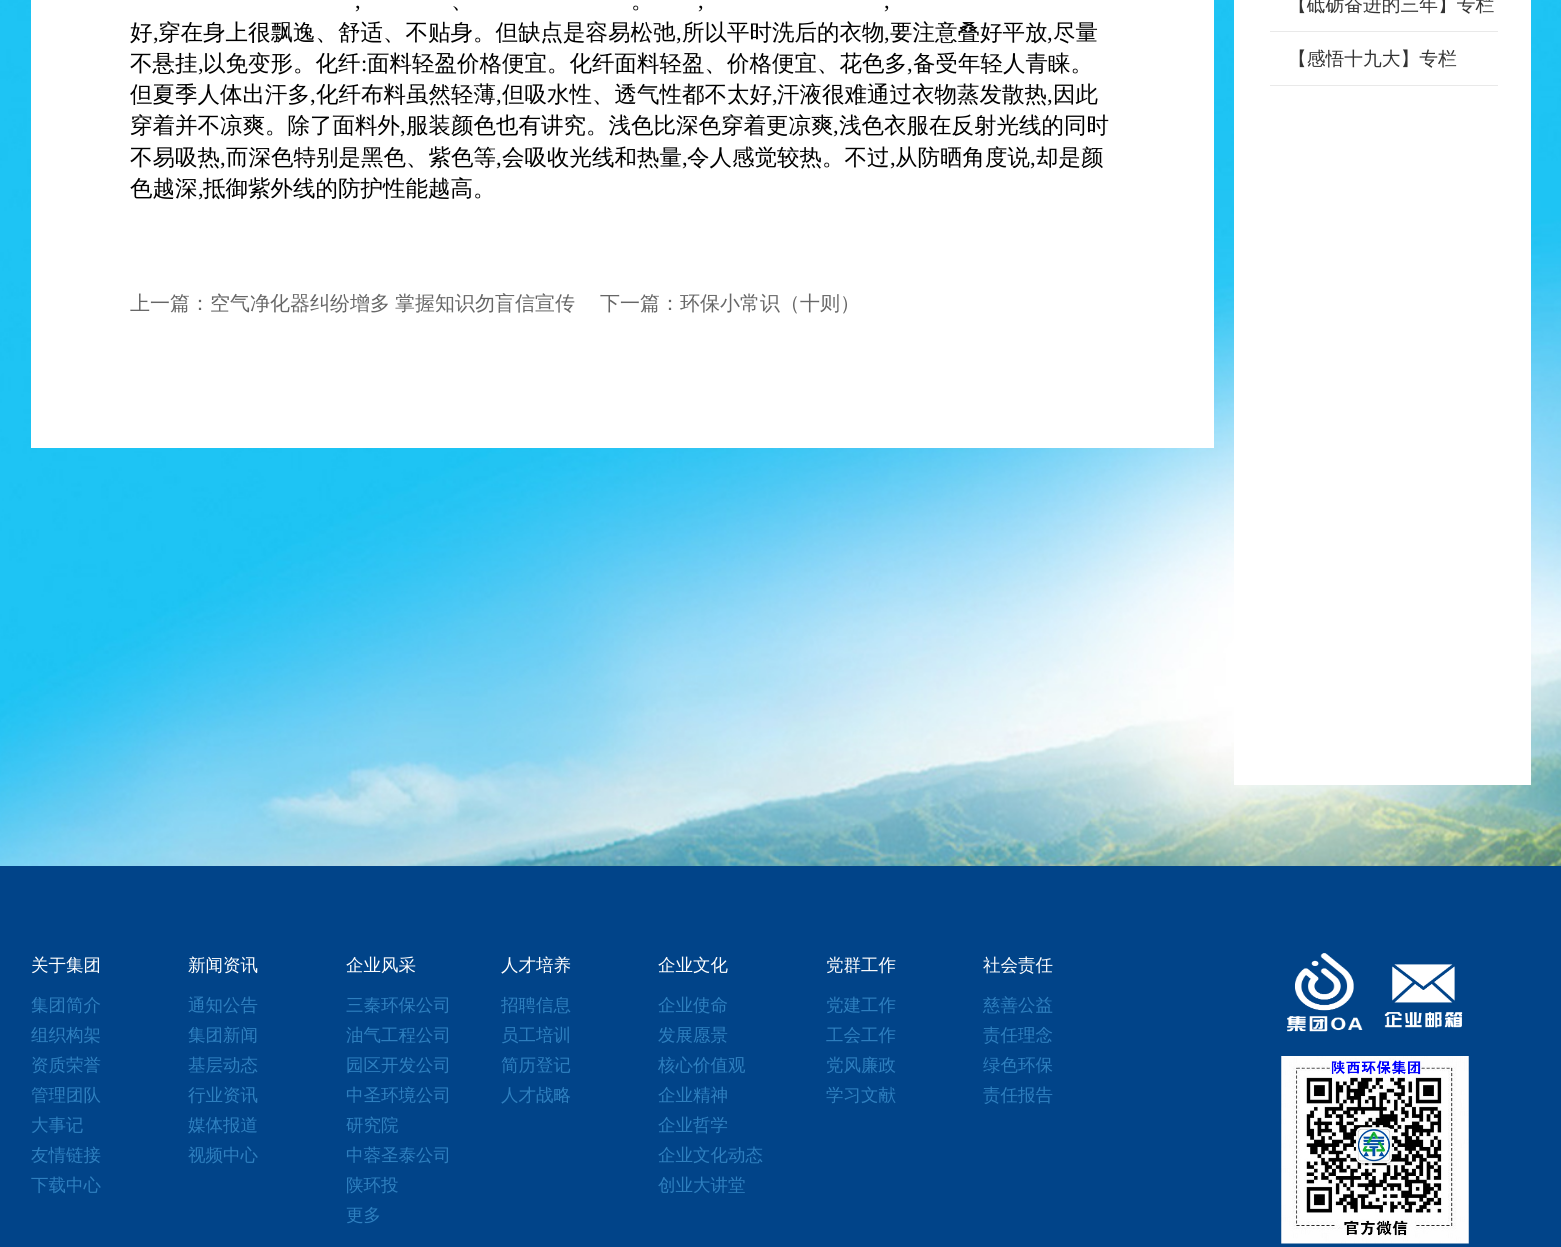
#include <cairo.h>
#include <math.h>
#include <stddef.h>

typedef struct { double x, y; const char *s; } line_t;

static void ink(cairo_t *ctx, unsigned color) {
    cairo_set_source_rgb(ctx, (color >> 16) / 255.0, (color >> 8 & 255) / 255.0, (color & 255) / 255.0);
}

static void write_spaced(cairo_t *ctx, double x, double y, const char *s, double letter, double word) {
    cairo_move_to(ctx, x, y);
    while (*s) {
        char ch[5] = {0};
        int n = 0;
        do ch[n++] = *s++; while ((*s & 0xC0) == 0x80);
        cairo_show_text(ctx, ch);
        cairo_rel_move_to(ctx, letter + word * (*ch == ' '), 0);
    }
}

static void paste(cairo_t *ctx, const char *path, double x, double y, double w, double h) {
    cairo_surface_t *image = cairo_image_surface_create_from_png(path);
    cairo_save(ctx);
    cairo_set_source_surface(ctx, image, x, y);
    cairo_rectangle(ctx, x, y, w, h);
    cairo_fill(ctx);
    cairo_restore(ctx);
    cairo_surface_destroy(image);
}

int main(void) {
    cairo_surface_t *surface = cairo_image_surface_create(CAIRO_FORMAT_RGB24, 1561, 1247);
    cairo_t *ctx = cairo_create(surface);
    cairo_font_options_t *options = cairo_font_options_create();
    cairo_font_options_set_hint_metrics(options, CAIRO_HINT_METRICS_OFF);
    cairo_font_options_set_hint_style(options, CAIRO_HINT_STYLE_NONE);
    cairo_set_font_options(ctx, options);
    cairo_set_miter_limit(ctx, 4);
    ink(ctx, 0xFFFFFF);
    cairo_paint(ctx);
    paste(ctx, "media/1.png", 0, 0, 1561, 866);
    ink(ctx, 0xFFFFFF);
    cairo_rectangle(ctx, 31, 0, 1183, 448);
    cairo_fill(ctx);
    cairo_select_font_face(ctx, "Liberation Serif", CAIRO_FONT_SLANT_NORMAL, CAIRO_FONT_WEIGHT_NORMAL);
    cairo_set_font_size(ctx, 22.5);
    ink(ctx, 0x000000);
    cairo_move_to(ctx, 355, 8);
    cairo_show_text(ctx, ",");
    cairo_select_font_face(ctx, "WenQuanYi Zen Hei Medium", CAIRO_FONT_SLANT_NORMAL, CAIRO_FONT_WEIGHT_NORMAL);
    cairo_move_to(ctx, 451, 8);
    cairo_show_text(ctx, "、");
    cairo_move_to(ctx, 631, 8);
    cairo_show_text(ctx, "。");
    cairo_select_font_face(ctx, "Liberation Serif", CAIRO_FONT_SLANT_NORMAL, CAIRO_FONT_WEIGHT_NORMAL);
    cairo_move_to(ctx, 698, 8);
    cairo_show_text(ctx, ",");
    cairo_move_to(ctx, 884, 8);
    cairo_show_text(ctx, ",");
    cairo_select_font_face(ctx, "WenQuanYi Zen Hei Medium", CAIRO_FONT_SLANT_NORMAL, CAIRO_FONT_WEIGHT_NORMAL);
    cairo_move_to(ctx, 130, 40);
    cairo_show_text(ctx, "好");
    cairo_select_font_face(ctx, "Liberation Serif", CAIRO_FONT_SLANT_NORMAL, CAIRO_FONT_WEIGHT_NORMAL);
    cairo_move_to(ctx, 153, 40);
    cairo_show_text(ctx, ",");
    cairo_select_font_face(ctx, "WenQuanYi Zen Hei Medium", CAIRO_FONT_SLANT_NORMAL, CAIRO_FONT_WEIGHT_NORMAL);
    cairo_move_to(ctx, 158, 40);
    cairo_show_text(ctx, "穿在身上很飘逸、舒适、不贴身。但缺点是容易松弛");
    cairo_select_font_face(ctx, "Liberation Serif", CAIRO_FONT_SLANT_NORMAL, CAIRO_FONT_WEIGHT_NORMAL);
    cairo_move_to(ctx, 676, 40);
    cairo_show_text(ctx, ",");
    cairo_select_font_face(ctx, "WenQuanYi Zen Hei Medium", CAIRO_FONT_SLANT_NORMAL, CAIRO_FONT_WEIGHT_NORMAL);
    cairo_move_to(ctx, 682, 40);
    cairo_show_text(ctx, "所以平时洗后的衣物");
    cairo_select_font_face(ctx, "Liberation Serif", CAIRO_FONT_SLANT_NORMAL, CAIRO_FONT_WEIGHT_NORMAL);
    cairo_move_to(ctx, 884, 40);
    cairo_show_text(ctx, ",");
    cairo_select_font_face(ctx, "WenQuanYi Zen Hei Medium", CAIRO_FONT_SLANT_NORMAL, CAIRO_FONT_WEIGHT_NORMAL);
    cairo_move_to(ctx, 890, 40);
    cairo_show_text(ctx, "要注意叠好平放");
    cairo_select_font_face(ctx, "Liberation Serif", CAIRO_FONT_SLANT_NORMAL, CAIRO_FONT_WEIGHT_NORMAL);
    cairo_move_to(ctx, 1047, 40);
    cairo_show_text(ctx, ",");
    cairo_select_font_face(ctx, "WenQuanYi Zen Hei Medium", CAIRO_FONT_SLANT_NORMAL, CAIRO_FONT_WEIGHT_NORMAL);
    cairo_move_to(ctx, 1053, 40);
    cairo_show_text(ctx, "尽量");
    cairo_move_to(ctx, 130, 71);
    cairo_show_text(ctx, "不悬挂");
    cairo_select_font_face(ctx, "Liberation Serif", CAIRO_FONT_SLANT_NORMAL, CAIRO_FONT_WEIGHT_NORMAL);
    cairo_move_to(ctx, 198, 71);
    cairo_show_text(ctx, ",");
    cairo_select_font_face(ctx, "WenQuanYi Zen Hei Medium", CAIRO_FONT_SLANT_NORMAL, CAIRO_FONT_WEIGHT_NORMAL);
    cairo_move_to(ctx, 203, 71);
    cairo_show_text(ctx, "以免变形。化纤");
    cairo_select_font_face(ctx, "Liberation Serif", CAIRO_FONT_SLANT_NORMAL, CAIRO_FONT_WEIGHT_NORMAL);
    cairo_move_to(ctx, 361, 71);
    cairo_show_text(ctx, ":");
    cairo_select_font_face(ctx, "WenQuanYi Zen Hei Medium", CAIRO_FONT_SLANT_NORMAL, CAIRO_FONT_WEIGHT_NORMAL);
    cairo_move_to(ctx, 367, 71);
    cairo_show_text(ctx, "面料轻盈价格便宜。化纤面料轻盈、价格便宜、花色多");
    cairo_select_font_face(ctx, "Liberation Serif", CAIRO_FONT_SLANT_NORMAL, CAIRO_FONT_WEIGHT_NORMAL);
    cairo_move_to(ctx, 907, 71);
    cairo_show_text(ctx, ",");
    cairo_select_font_face(ctx, "WenQuanYi Zen Hei Medium", CAIRO_FONT_SLANT_NORMAL, CAIRO_FONT_WEIGHT_NORMAL);
    cairo_move_to(ctx, 913, 71);
    cairo_show_text(ctx, "备受年轻人青睐。");
    cairo_move_to(ctx, 130, 102);
    cairo_show_text(ctx, "但夏季人体出汗多");
    cairo_select_font_face(ctx, "Liberation Serif", CAIRO_FONT_SLANT_NORMAL, CAIRO_FONT_WEIGHT_NORMAL);
    cairo_move_to(ctx, 310, 102);
    cairo_show_text(ctx, ",");
    cairo_select_font_face(ctx, "WenQuanYi Zen Hei Medium", CAIRO_FONT_SLANT_NORMAL, CAIRO_FONT_WEIGHT_NORMAL);
    cairo_move_to(ctx, 316, 102);
    cairo_show_text(ctx, "化纤布料虽然轻薄");
    cairo_select_font_face(ctx, "Liberation Serif", CAIRO_FONT_SLANT_NORMAL, CAIRO_FONT_WEIGHT_NORMAL);
    cairo_move_to(ctx, 496, 102);
    cairo_show_text(ctx, ",");
    cairo_select_font_face(ctx, "WenQuanYi Zen Hei Medium", CAIRO_FONT_SLANT_NORMAL, CAIRO_FONT_WEIGHT_NORMAL);
    cairo_move_to(ctx, 502, 102);
    cairo_show_text(ctx, "但吸水性、透气性都不太好");
    cairo_select_font_face(ctx, "Liberation Serif", CAIRO_FONT_SLANT_NORMAL, CAIRO_FONT_WEIGHT_NORMAL);
    cairo_move_to(ctx, 772, 102);
    cairo_show_text(ctx, ",");
    cairo_select_font_face(ctx, "WenQuanYi Zen Hei Medium", CAIRO_FONT_SLANT_NORMAL, CAIRO_FONT_WEIGHT_NORMAL);
    cairo_move_to(ctx, 777, 102);
    cairo_show_text(ctx, "汗液很难通过衣物蒸发散热");
    cairo_select_font_face(ctx, "Liberation Serif", CAIRO_FONT_SLANT_NORMAL, CAIRO_FONT_WEIGHT_NORMAL);
    cairo_move_to(ctx, 1047, 102);
    cairo_show_text(ctx, ",");
    cairo_select_font_face(ctx, "WenQuanYi Zen Hei Medium", CAIRO_FONT_SLANT_NORMAL, CAIRO_FONT_WEIGHT_NORMAL);
    cairo_move_to(ctx, 1053, 102);
    cairo_show_text(ctx, "因此");
    cairo_move_to(ctx, 130, 133);
    cairo_show_text(ctx, "穿着并不凉爽。除了面料外");
    cairo_select_font_face(ctx, "Liberation Serif", CAIRO_FONT_SLANT_NORMAL, CAIRO_FONT_WEIGHT_NORMAL);
    cairo_move_to(ctx, 400, 133);
    cairo_show_text(ctx, ",");
    cairo_select_font_face(ctx, "WenQuanYi Zen Hei Medium", CAIRO_FONT_SLANT_NORMAL, CAIRO_FONT_WEIGHT_NORMAL);
    cairo_move_to(ctx, 406, 133);
    cairo_show_text(ctx, "服装颜色也有讲究。浅色比深色穿着更凉爽");
    cairo_select_font_face(ctx, "Liberation Serif", CAIRO_FONT_SLANT_NORMAL, CAIRO_FONT_WEIGHT_NORMAL);
    cairo_move_to(ctx, 833, 133);
    cairo_show_text(ctx, ",");
    cairo_select_font_face(ctx, "WenQuanYi Zen Hei Medium", CAIRO_FONT_SLANT_NORMAL, CAIRO_FONT_WEIGHT_NORMAL);
    cairo_move_to(ctx, 839, 133);
    cairo_show_text(ctx, "浅色衣服在反射光线的同时");
    cairo_move_to(ctx, 130, 165);
    cairo_show_text(ctx, "不易吸热");
    cairo_select_font_face(ctx, "Liberation Serif", CAIRO_FONT_SLANT_NORMAL, CAIRO_FONT_WEIGHT_NORMAL);
    cairo_move_to(ctx, 220, 165);
    cairo_show_text(ctx, ",");
    cairo_select_font_face(ctx, "WenQuanYi Zen Hei Medium", CAIRO_FONT_SLANT_NORMAL, CAIRO_FONT_WEIGHT_NORMAL);
    cairo_move_to(ctx, 226, 165);
    cairo_show_text(ctx, "而深色特别是黑色、紫色等");
    cairo_select_font_face(ctx, "Liberation Serif", CAIRO_FONT_SLANT_NORMAL, CAIRO_FONT_WEIGHT_NORMAL);
    cairo_move_to(ctx, 496, 165);
    cairo_show_text(ctx, ",");
    cairo_select_font_face(ctx, "WenQuanYi Zen Hei Medium", CAIRO_FONT_SLANT_NORMAL, CAIRO_FONT_WEIGHT_NORMAL);
    cairo_move_to(ctx, 502, 165);
    cairo_show_text(ctx, "会吸收光线和热量");
    cairo_select_font_face(ctx, "Liberation Serif", CAIRO_FONT_SLANT_NORMAL, CAIRO_FONT_WEIGHT_NORMAL);
    cairo_move_to(ctx, 682, 165);
    cairo_show_text(ctx, ",");
    cairo_select_font_face(ctx, "WenQuanYi Zen Hei Medium", CAIRO_FONT_SLANT_NORMAL, CAIRO_FONT_WEIGHT_NORMAL);
    cairo_move_to(ctx, 687, 165);
    cairo_show_text(ctx, "令人感觉较热。不过");
    cairo_select_font_face(ctx, "Liberation Serif", CAIRO_FONT_SLANT_NORMAL, CAIRO_FONT_WEIGHT_NORMAL);
    cairo_move_to(ctx, 890, 165);
    cairo_show_text(ctx, ",");
    cairo_select_font_face(ctx, "WenQuanYi Zen Hei Medium", CAIRO_FONT_SLANT_NORMAL, CAIRO_FONT_WEIGHT_NORMAL);
    cairo_move_to(ctx, 895, 165);
    cairo_show_text(ctx, "从防晒角度说");
    cairo_select_font_face(ctx, "Liberation Serif", CAIRO_FONT_SLANT_NORMAL, CAIRO_FONT_WEIGHT_NORMAL);
    cairo_move_to(ctx, 1030, 165);
    cairo_show_text(ctx, ",");
    cairo_select_font_face(ctx, "WenQuanYi Zen Hei Medium", CAIRO_FONT_SLANT_NORMAL, CAIRO_FONT_WEIGHT_NORMAL);
    cairo_move_to(ctx, 1036, 165);
    cairo_show_text(ctx, "却是颜");
    cairo_move_to(ctx, 130, 196);
    cairo_show_text(ctx, "色越深");
    cairo_select_font_face(ctx, "Liberation Serif", CAIRO_FONT_SLANT_NORMAL, CAIRO_FONT_WEIGHT_NORMAL);
    cairo_move_to(ctx, 198, 196);
    cairo_show_text(ctx, ",");
    cairo_select_font_face(ctx, "WenQuanYi Zen Hei Medium", CAIRO_FONT_SLANT_NORMAL, CAIRO_FONT_WEIGHT_NORMAL);
    cairo_move_to(ctx, 203, 196);
    cairo_show_text(ctx, "抵御紫外线的防护性能越高。");
    cairo_set_font_size(ctx, 20);
    ink(ctx, 0x666666);
    write_spaced(ctx, 130, 310, "上一篇：空气净化器纠纷增多 掌握知识勿盲信宣传", 0, -1);
    cairo_move_to(ctx, 600, 310);
    cairo_show_text(ctx, "下一篇：环保小常识（十则）");
    ink(ctx, 0xFFFFFF);
    cairo_rectangle(ctx, 1234, 0, 297, 785);
    cairo_fill(ctx);
    ink(ctx, 0xE9E9E9);
    cairo_rectangle(ctx, 1270, 31, 228, 1);
    cairo_fill(ctx);
    cairo_set_font_size(ctx, 18.75);
    ink(ctx, 0x333333);
    cairo_move_to(ctx, 1288, 11);
    cairo_show_text(ctx, "【砥砺奋进的三年】专栏");
    ink(ctx, 0xE9E9E9);
    cairo_rectangle(ctx, 1270, 85, 228, 1);
    cairo_fill(ctx);
    ink(ctx, 0x333333);
    cairo_move_to(ctx, 1288, 65);
    cairo_show_text(ctx, "【感悟十九大】专栏");
    ink(ctx, 0x014489);
    cairo_rectangle(ctx, 0, 866, 1561, 381);
    cairo_fill(ctx);
    cairo_set_font_size(ctx, 17.5);
    ink(ctx, 0xFFFFFF);
    cairo_move_to(ctx, 31, 971);
    cairo_show_text(ctx, "关于集团");
    ink(ctx, 0x2E7FBF);
    {
        static const line_t items[] = {
            {31, 1011, "集团简介"},
            {31, 1041, "组织构架"},
            {31, 1071, "资质荣誉"},
            {31, 1101, "管理团队"},
            {31, 1131, "大事记"},
            {31, 1161, "友情链接"},
            {31, 1191, "下载中心"},
        };
        for (size_t i = 0; i < sizeof items / sizeof *items; i++) {
            cairo_move_to(ctx, items[i].x, items[i].y);
            cairo_show_text(ctx, items[i].s);
        }
    }
    ink(ctx, 0xFFFFFF);
    cairo_move_to(ctx, 188, 971);
    cairo_show_text(ctx, "新闻资讯");
    ink(ctx, 0x2E7FBF);
    {
        static const line_t items[] = {
            {188, 1011, "通知公告"},
            {188, 1041, "集团新闻"},
            {188, 1071, "基层动态"},
            {188, 1101, "行业资讯"},
            {188, 1131, "媒体报道"},
            {188, 1161, "视频中心"},
        };
        for (size_t i = 0; i < sizeof items / sizeof *items; i++) {
            cairo_move_to(ctx, items[i].x, items[i].y);
            cairo_show_text(ctx, items[i].s);
        }
    }
    ink(ctx, 0xFFFFFF);
    cairo_move_to(ctx, 346, 971);
    cairo_show_text(ctx, "企业风采");
    ink(ctx, 0x2E7FBF);
    {
        static const line_t items[] = {
            {346, 1011, "三秦环保公司"},
            {346, 1041, "油气工程公司"},
            {346, 1071, "园区开发公司"},
            {346, 1101, "中圣环境公司"},
            {346, 1131, "研究院"},
            {346, 1161, "中蓉圣泰公司"},
            {346, 1191, "陕环投"},
            {346, 1221, "更多"},
        };
        for (size_t i = 0; i < sizeof items / sizeof *items; i++) {
            cairo_move_to(ctx, items[i].x, items[i].y);
            cairo_show_text(ctx, items[i].s);
        }
    }
    ink(ctx, 0xFFFFFF);
    cairo_move_to(ctx, 501, 971);
    cairo_show_text(ctx, "人才培养");
    ink(ctx, 0x2E7FBF);
    {
        static const line_t items[] = {
            {501, 1011, "招聘信息"},
            {501, 1041, "员工培训"},
            {501, 1071, "简历登记"},
            {501, 1101, "人才战略"},
        };
        for (size_t i = 0; i < sizeof items / sizeof *items; i++) {
            cairo_move_to(ctx, items[i].x, items[i].y);
            cairo_show_text(ctx, items[i].s);
        }
    }
    ink(ctx, 0xFFFFFF);
    cairo_move_to(ctx, 658, 971);
    cairo_show_text(ctx, "企业文化");
    ink(ctx, 0x2E7FBF);
    {
        static const line_t items[] = {
            {658, 1011, "企业使命"},
            {658, 1041, "发展愿景"},
            {658, 1071, "核心价值观"},
            {658, 1101, "企业精神"},
            {658, 1131, "企业哲学"},
            {658, 1161, "企业文化动态"},
            {658, 1191, "创业大讲堂"},
        };
        for (size_t i = 0; i < sizeof items / sizeof *items; i++) {
            cairo_move_to(ctx, items[i].x, items[i].y);
            cairo_show_text(ctx, items[i].s);
        }
    }
    ink(ctx, 0xFFFFFF);
    cairo_move_to(ctx, 826, 971);
    cairo_show_text(ctx, "党群工作");
    ink(ctx, 0x2E7FBF);
    {
        static const line_t items[] = {
            {826, 1011, "党建工作"},
            {826, 1041, "工会工作"},
            {826, 1071, "党风廉政"},
            {826, 1101, "学习文献"},
        };
        for (size_t i = 0; i < sizeof items / sizeof *items; i++) {
            cairo_move_to(ctx, items[i].x, items[i].y);
            cairo_show_text(ctx, items[i].s);
        }
    }
    ink(ctx, 0xFFFFFF);
    cairo_move_to(ctx, 983, 971);
    cairo_show_text(ctx, "社会责任");
    ink(ctx, 0x2E7FBF);
    {
        static const line_t items[] = {
            {983, 1011, "慈善公益"},
            {983, 1041, "责任理念"},
            {983, 1071, "绿色环保"},
            {983, 1101, "责任报告"},
        };
        for (size_t i = 0; i < sizeof items / sizeof *items; i++) {
            cairo_move_to(ctx, items[i].x, items[i].y);
            cairo_show_text(ctx, items[i].s);
        }
    }
    paste(ctx, "media/2.png", 1287, 953, 76, 79);
    paste(ctx, "media/3.png", 1384, 964, 79, 64);
    paste(ctx, "media/4.png", 1281, 1056, 188, 188);
    cairo_surface_write_to_png(surface, "image.png");
    cairo_font_options_destroy(options);
    cairo_destroy(ctx);
    cairo_surface_destroy(surface);
    return 0;
}
